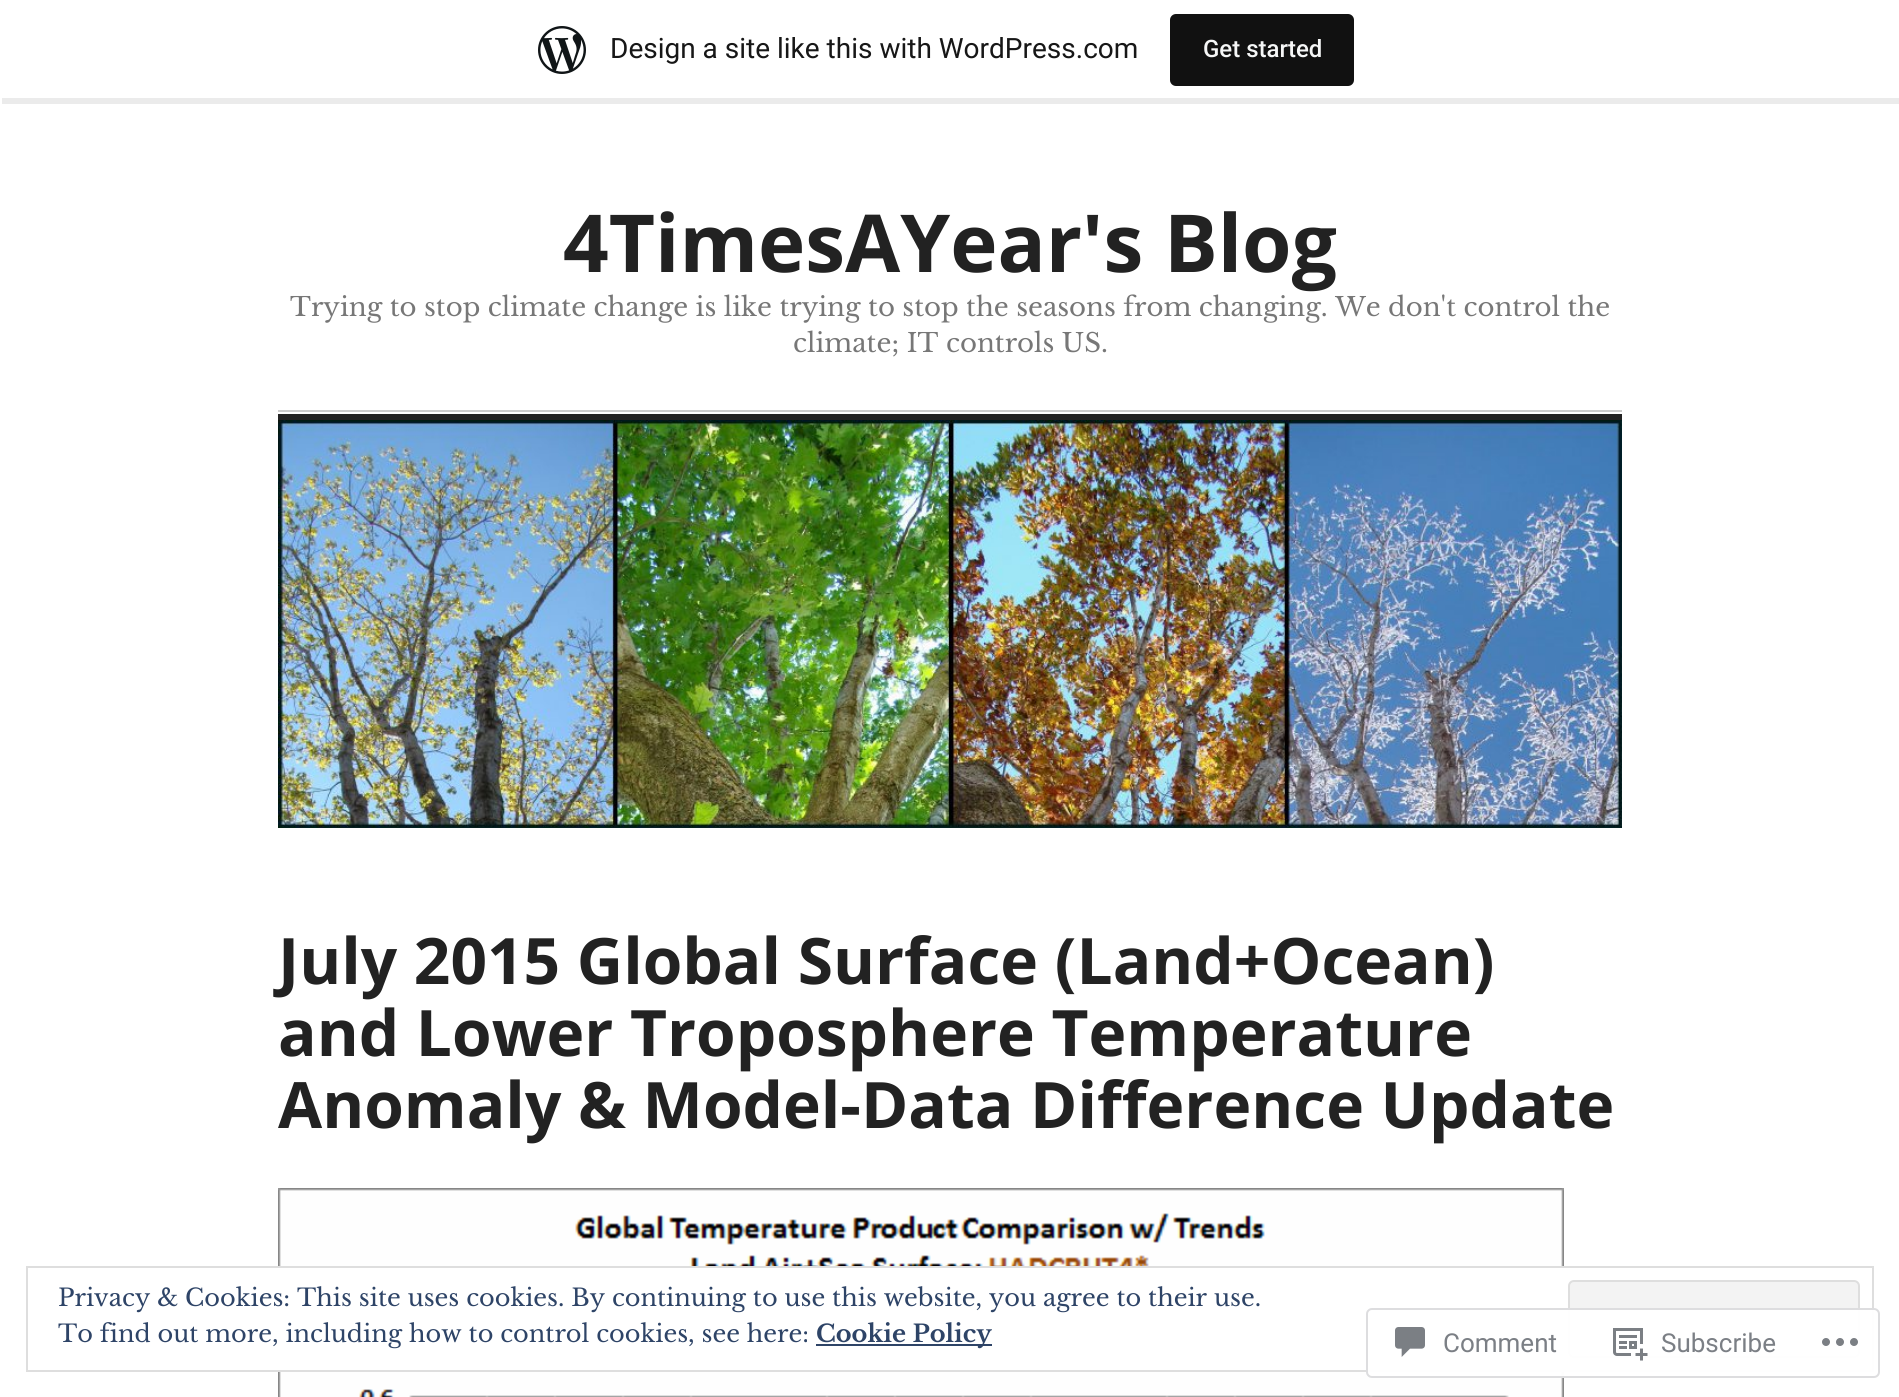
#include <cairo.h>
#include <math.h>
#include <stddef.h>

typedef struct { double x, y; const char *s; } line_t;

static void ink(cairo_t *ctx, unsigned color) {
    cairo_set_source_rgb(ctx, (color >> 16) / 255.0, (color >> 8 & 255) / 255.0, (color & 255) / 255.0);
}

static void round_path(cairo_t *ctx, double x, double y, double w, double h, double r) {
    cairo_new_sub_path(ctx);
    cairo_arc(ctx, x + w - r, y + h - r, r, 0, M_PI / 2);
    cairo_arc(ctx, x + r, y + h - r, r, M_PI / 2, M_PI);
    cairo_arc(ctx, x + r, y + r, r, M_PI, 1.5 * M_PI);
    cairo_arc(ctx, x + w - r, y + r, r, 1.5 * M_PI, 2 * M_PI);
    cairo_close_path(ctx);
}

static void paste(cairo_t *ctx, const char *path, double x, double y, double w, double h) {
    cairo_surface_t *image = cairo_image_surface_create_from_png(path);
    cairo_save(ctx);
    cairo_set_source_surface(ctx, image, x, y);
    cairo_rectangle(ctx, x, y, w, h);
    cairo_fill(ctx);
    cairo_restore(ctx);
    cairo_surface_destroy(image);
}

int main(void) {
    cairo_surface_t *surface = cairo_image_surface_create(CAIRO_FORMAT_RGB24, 1899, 1397);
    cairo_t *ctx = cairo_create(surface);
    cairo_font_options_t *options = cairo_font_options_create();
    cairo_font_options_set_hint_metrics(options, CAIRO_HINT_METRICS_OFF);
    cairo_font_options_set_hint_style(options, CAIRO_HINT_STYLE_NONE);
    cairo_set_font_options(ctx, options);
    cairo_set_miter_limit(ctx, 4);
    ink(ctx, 0xFFFFFF);
    cairo_paint(ctx);
    cairo_set_source_rgba(ctx, 0, 0, 0, 0.08);
    cairo_new_path(ctx);
    cairo_move_to(ctx, 2, 98);
    cairo_line_to(ctx, 2, 104);
    cairo_line_to(ctx, 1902, 104);
    cairo_line_to(ctx, 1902, 6);
    cairo_line_to(ctx, 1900, 6);
    cairo_line_to(ctx, 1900, 98);
    cairo_close_path(ctx);
    cairo_fill(ctx);
    paste(ctx, "media/1.png", 538, 26, 48, 48);
    cairo_select_font_face(ctx, "Roboto", CAIRO_FONT_SLANT_NORMAL, CAIRO_FONT_WEIGHT_NORMAL);
    cairo_set_font_size(ctx, 28);
    ink(ctx, 0x171717);
    cairo_move_to(ctx, 610, 58);
    cairo_show_text(ctx, "Design a site like this with WordPress.com");
    ink(ctx, 0x111111);
    round_path(ctx, 1170, 14, 184, 72, 6);
    cairo_fill(ctx);
    cairo_select_font_face(ctx, "Roboto Medium", CAIRO_FONT_SLANT_NORMAL, CAIRO_FONT_WEIGHT_NORMAL);
    cairo_set_font_size(ctx, 24);
    ink(ctx, 0xF6F7F7);
    cairo_move_to(ctx, 1203, 57);
    cairo_show_text(ctx, "Get started");
    cairo_select_font_face(ctx, "Open Sans", CAIRO_FONT_SLANT_NORMAL, CAIRO_FONT_WEIGHT_BOLD);
    cairo_set_font_size(ctx, 80);
    ink(ctx, 0x222222);
    cairo_move_to(ctx, 563, 272);
    cairo_show_text(ctx, "4TimesAYear's Blog");
    cairo_select_font_face(ctx, "Libre Baskerville", CAIRO_FONT_SLANT_NORMAL, CAIRO_FONT_WEIGHT_NORMAL);
    cairo_set_font_size(ctx, 26);
    ink(ctx, 0x777777);
    cairo_move_to(ctx, 290, 316);
    cairo_show_text(ctx, "Trying to stop climate change is like trying to stop the seasons from changing. We don't control the");
    cairo_move_to(ctx, 793, 352);
    cairo_show_text(ctx, "climate; IT controls US.");
    ink(ctx, 0xCCCCCC);
    cairo_rectangle(ctx, 278, 410, 1344, 2);
    cairo_fill(ctx);
    ink(ctx, 0x222222);
    cairo_rectangle(ctx, 278, 414, 1344, 6);
    cairo_fill(ctx);
    paste(ctx, "media/2.png", 278, 420, 1344, 408);
    cairo_select_font_face(ctx, "Open Sans", CAIRO_FONT_SLANT_NORMAL, CAIRO_FONT_WEIGHT_BOLD);
    cairo_set_font_size(ctx, 64);
    {
        static const line_t items[] = {
            {278, 984, "July 2015 Global Surface (Land+Ocean)"},
            {278, 1056, "and Lower Troposphere Temperature"},
            {278, 1128, "Anomaly & Model-Data Difference Update"},
        };
        for (size_t i = 0; i < sizeof items / sizeof *items; i++) {
            cairo_move_to(ctx, items[i].x, items[i].y);
            cairo_show_text(ctx, items[i].s);
        }
    }
    paste(ctx, "media/3.png", 278, 1188, 1286, 209);
    ink(ctx, 0xFFFFFF);
    cairo_rectangle(ctx, 278, 1268, 1286, 102);
    cairo_fill(ctx);
    cairo_rectangle(ctx, 27, 1267, 1846, 104);
    ink(ctx, 0xDEDEDE);
    cairo_stroke(ctx);
    cairo_select_font_face(ctx, "Libre Baskerville", CAIRO_FONT_SLANT_NORMAL, CAIRO_FONT_WEIGHT_NORMAL);
    cairo_set_font_size(ctx, 24);
    ink(ctx, 0x2E4467);
    cairo_move_to(ctx, 58, 1306);
    cairo_show_text(ctx, "Privacy & Cookies: This site uses cookies. By continuing to use this website, you agree to their use.");
    ink(ctx, 0xF3F3F3);
    round_path(ctx, 1569, 1281, 290, 76, 5);
    cairo_fill_preserve(ctx);
    ink(ctx, 0xDEDEDE);
    cairo_stroke(ctx);
    ink(ctx, 0x2E4467);
    cairo_move_to(ctx, 58, 1342);
    cairo_show_text(ctx, "To find out more, including how to control cookies, see here:");
    cairo_rectangle(ctx, 816, 1344, 176, 2);
    cairo_fill(ctx);
    cairo_select_font_face(ctx, "Libre Baskerville", CAIRO_FONT_SLANT_NORMAL, CAIRO_FONT_WEIGHT_BOLD);
    cairo_move_to(ctx, 816, 1342);
    cairo_show_text(ctx, "Cookie Policy");
    cairo_set_source_rgba(ctx, 1, 1, 1, 0.98);
    round_path(ctx, 1366, 1308, 514, 70, 6);
    cairo_fill(ctx);
    round_path(ctx, 1367, 1309, 512, 68, 5);
    cairo_set_source_rgba(ctx, 0.863, 0.863, 0.871, 0.98);
    cairo_stroke(ctx);
    paste(ctx, "media/4.png", 1395, 1327, 30, 30);
    cairo_select_font_face(ctx, "Roboto", CAIRO_FONT_SLANT_NORMAL, CAIRO_FONT_WEIGHT_NORMAL);
    cairo_set_font_size(ctx, 26);
    ink(ctx, 0x7B7F85);
    cairo_move_to(ctx, 1443, 1352);
    cairo_show_text(ctx, "Comment");
    paste(ctx, "media/5.png", 1613, 1328, 35, 33);
    cairo_move_to(ctx, 1661, 1352);
    cairo_show_text(ctx, "Subscribe");
    paste(ctx, "media/6.png", 1822, 1338, 36, 8);
    cairo_surface_write_to_png(surface, "image.png");
    cairo_font_options_destroy(options);
    cairo_destroy(ctx);
    cairo_surface_destroy(surface);
    return 0;
}
